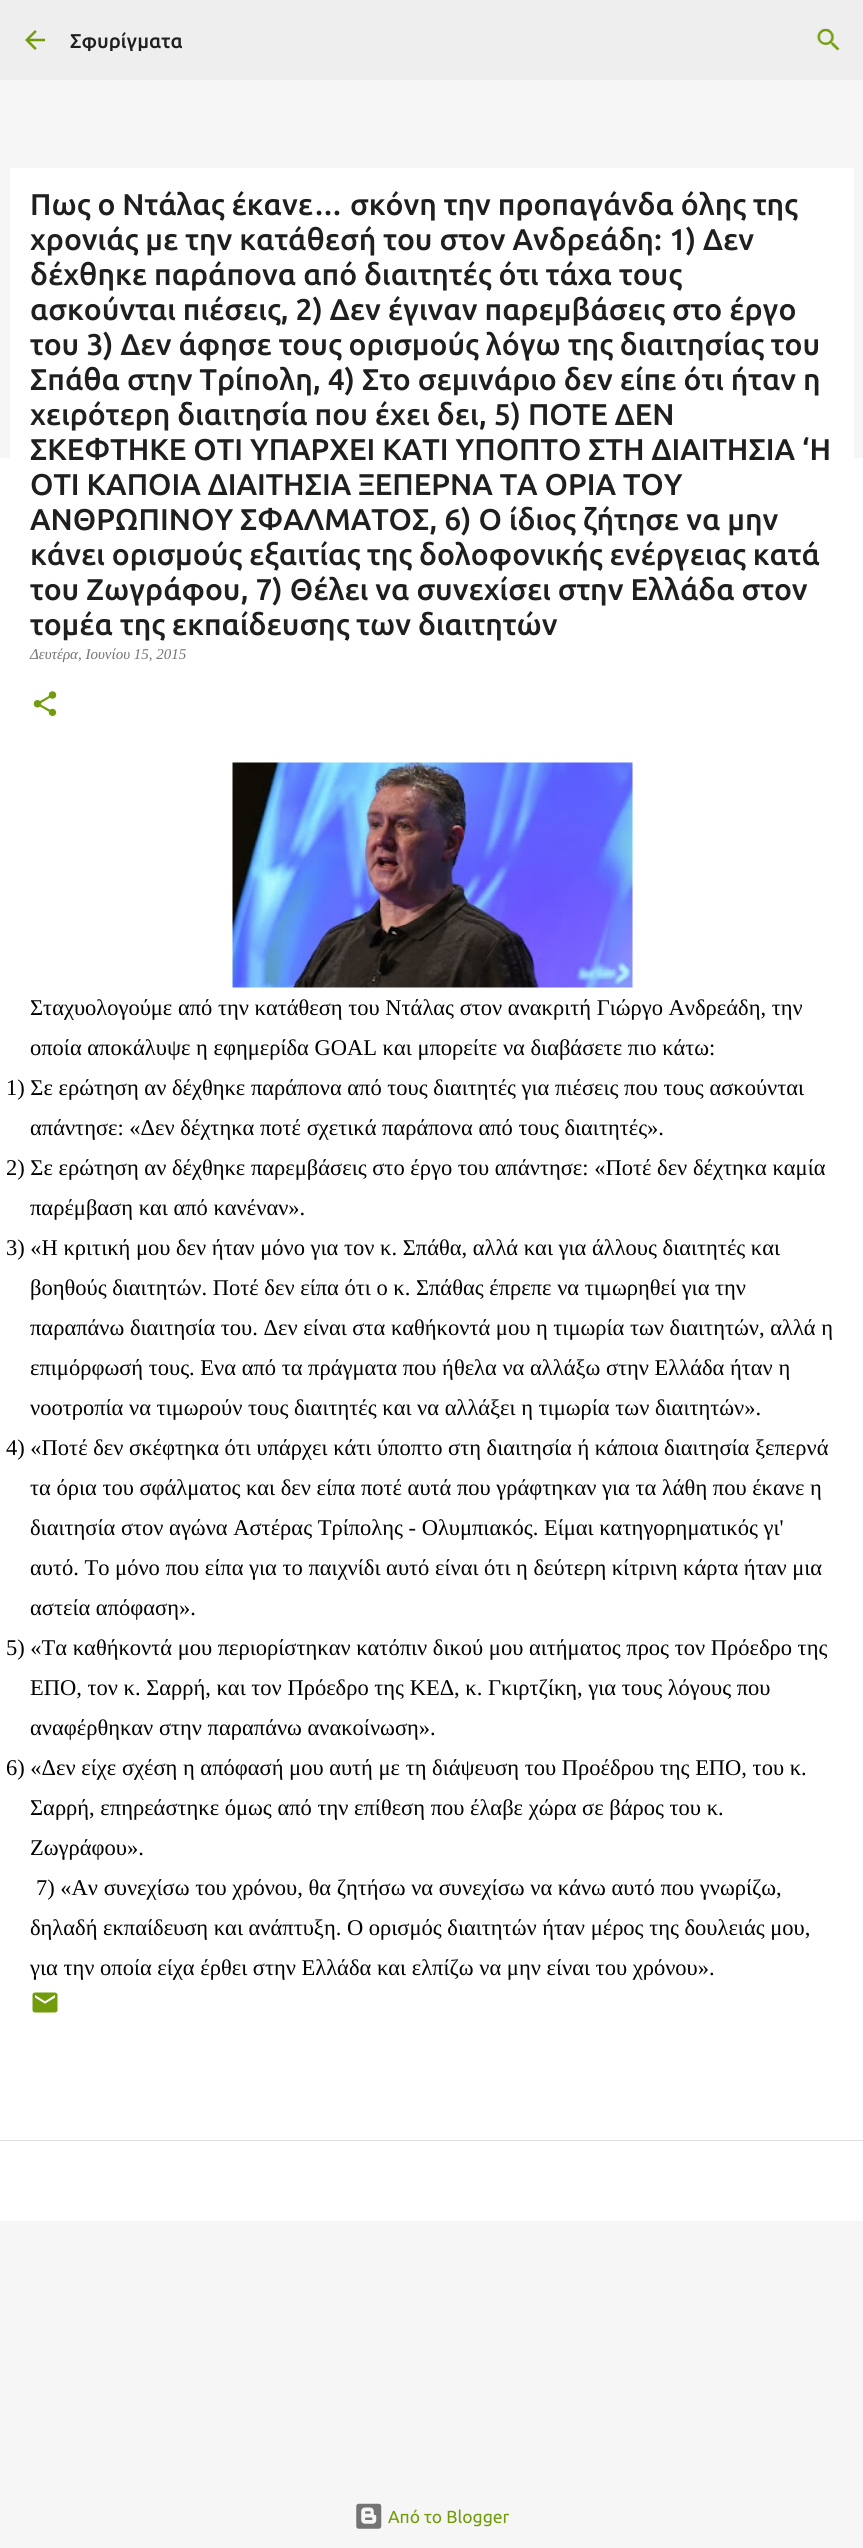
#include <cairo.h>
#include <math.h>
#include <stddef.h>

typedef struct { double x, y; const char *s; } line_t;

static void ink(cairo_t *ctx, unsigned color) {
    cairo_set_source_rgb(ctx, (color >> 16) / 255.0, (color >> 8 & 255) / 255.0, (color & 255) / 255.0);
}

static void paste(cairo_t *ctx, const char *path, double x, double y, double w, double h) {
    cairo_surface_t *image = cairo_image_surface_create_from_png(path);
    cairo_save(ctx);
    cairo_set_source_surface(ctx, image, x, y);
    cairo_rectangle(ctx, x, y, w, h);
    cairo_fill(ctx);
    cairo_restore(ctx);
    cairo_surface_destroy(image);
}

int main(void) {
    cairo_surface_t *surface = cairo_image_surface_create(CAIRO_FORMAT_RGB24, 863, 2548);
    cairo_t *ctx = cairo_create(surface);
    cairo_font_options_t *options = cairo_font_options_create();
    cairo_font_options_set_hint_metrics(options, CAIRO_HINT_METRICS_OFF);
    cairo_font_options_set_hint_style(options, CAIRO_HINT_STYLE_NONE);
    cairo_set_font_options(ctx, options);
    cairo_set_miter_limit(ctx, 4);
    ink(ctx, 0xF6F6F6);
    cairo_paint(ctx);
    ink(ctx, 0xEEEEEE);
    cairo_rectangle(ctx, 0, 0, 863, 80);
    cairo_fill(ctx);
    paste(ctx, "media/1.png", 25, 30, 20, 20);
    cairo_save(ctx);
    cairo_rectangle(ctx, 70, 29, 724, 22);
    cairo_clip(ctx);
    cairo_select_font_face(ctx, "Ubuntu Medium", CAIRO_FONT_SLANT_NORMAL, CAIRO_FONT_WEIGHT_NORMAL);
    cairo_set_font_size(ctx, 20);
    ink(ctx, 0x1F1F1F);
    cairo_move_to(ctx, 70, 48);
    cairo_show_text(ctx, "Σφυρίγματα");
    cairo_restore(ctx);
    paste(ctx, "media/2.png", 816, 28, 24, 23);
    ink(ctx, 0xFFFFFF);
    cairo_rectangle(ctx, 0, 458, 863, 1682);
    cairo_fill(ctx);
    cairo_rectangle(ctx, 10, 168, 844, 290);
    cairo_fill(ctx);
    cairo_select_font_face(ctx, "Ubuntu Medium", CAIRO_FONT_SLANT_NORMAL, CAIRO_FONT_WEIGHT_NORMAL);
    cairo_set_font_size(ctx, 30);
    ink(ctx, 0x1F1F1F);
    {
        static const line_t items[] = {
            {30, 215, "Πως ο Ντάλας έκανε… σκόνη την προπαγάνδα όλης της"},
            {30, 250, "χρονιάς με την κατάθεσή του στον Ανδρεάδη: 1) Δεν"},
            {30, 285, "δέχθηκε παράπονα από διαιτητές ότι τάχα τους"},
            {30, 320, "ασκούνται πιέσεις, 2) Δεν έγιναν παρεμβάσεις στο έργο"},
            {30, 355, "του 3) Δεν άφησε τους ορισμούς λόγω της διαιτησίας του"},
            {30, 390, "Σπάθα στην Τρίπολη, 4) Στο σεμινάριο δεν είπε ότι ήταν η"},
            {30, 425, "χειρότερη διαιτησία που έχει δει, 5) ΠΟΤΕ ΔΕΝ"},
            {30, 460, "ΣΚΕΦΤΗΚΕ ΟΤΙ ΥΠΑΡΧΕΙ ΚΑΤΙ ΥΠΟΠΤΟ ΣΤΗ ΔΙΑΙΤΗΣΙΑ ‘Η"},
            {30, 495, "ΟΤΙ ΚΑΠΟΙΑ ΔΙΑΙΤΗΣΙΑ ΞΕΠΕΡΝΑ ΤΑ ΟΡΙΑ ΤΟΥ"},
            {30, 530, "ΑΝΘΡΩΠΙΝΟΥ ΣΦΑΛΜΑΤΟΣ, 6) Ο ίδιος ζήτησε να μην"},
            {30, 565, "κάνει ορισμούς εξαιτίας της δολοφονικής ενέργειας κατά"},
            {30, 600, "του Ζωγράφου, 7) Θέλει να συνεχίσει στην Ελλάδα στον"},
            {30, 635, "τομέα της εκπαίδευσης των διαιτητών"},
        };
        for (size_t i = 0; i < sizeof items / sizeof *items; i++) {
            cairo_move_to(ctx, items[i].x, items[i].y);
            cairo_show_text(ctx, items[i].s);
        }
    }
    cairo_select_font_face(ctx, "Liberation Serif", CAIRO_FONT_SLANT_ITALIC, CAIRO_FONT_WEIGHT_NORMAL);
    cairo_set_font_size(ctx, 15);
    ink(ctx, 0x747474);
    cairo_move_to(ctx, 30, 659);
    cairo_show_text(ctx, "Δευτέρα, Ιουνίου 15, 2015");
    paste(ctx, "media/3.png", 33, 691, 24, 26);
    paste(ctx, "media/4.png", 232, 762, 401, 226);
    cairo_select_font_face(ctx, "Liberation Serif", CAIRO_FONT_SLANT_NORMAL, CAIRO_FONT_WEIGHT_NORMAL);
    cairo_set_font_size(ctx, 22.5);
    ink(ctx, 0x000000);
    {
        static const line_t items[] = {
            {30, 1015, "Σταχυολογούμε από την κατάθεση του Ντάλας στον ανακριτή Γιώργο Ανδρεάδη, την"},
            {30, 1055, "οποία αποκάλυψε η εφημερίδα GOAL και μπορείτε να διαβάσετε πιο κάτω:"},
            {6, 1095, "1) Σε ερώτηση αν δέχθηκε παράπονα από τους διαιτητές για πιέσεις που τους ασκούνται"},
            {30, 1135, "απάντησε: «Δεν δέχτηκα ποτέ σχετικά παράπονα από τους διαιτητές»."},
            {6, 1175, "2) Σε ερώτηση αν δέχθηκε παρεμβάσεις στο έργο του απάντησε: «Ποτέ δεν δέχτηκα καμία"},
            {30, 1215, "παρέμβαση και από κανέναν»."},
            {6, 1255, "3) «Η κριτική μου δεν ήταν μόνο για τον κ. Σπάθα, αλλά και για άλλους διαιτητές και"},
            {30, 1295, "βοηθούς διαιτητών. Ποτέ δεν είπα ότι ο κ. Σπάθας έπρεπε να τιμωρηθεί για την"},
            {30, 1335, "παραπάνω διαιτησία του. Δεν είναι στα καθήκοντά μου η τιμωρία των διαιτητών, αλλά η"},
            {30, 1375, "επιμόρφωσή τους. Eνα από τα πράγματα που ήθελα να αλλάξω στην Eλλάδα ήταν η"},
            {30, 1415, "νοοτροπία να τιμωρούν τους διαιτητές και να αλλάξει η τιμωρία των διαιτητών»."},
            {6, 1455, "4) «Ποτέ δεν σκέφτηκα ότι υπάρχει κάτι ύποπτο στη διαιτησία ή κάποια διαιτησία ξεπερνά"},
            {30, 1495, "τα όρια του σφάλματος και δεν είπα ποτέ αυτά που γράφτηκαν για τα λάθη που έκανε η"},
            {30, 1535, "διαιτησία στον αγώνα Aστέρας Tρίπολης - Oλυμπιακός. Eίμαι κατηγορηματικός γι'"},
            {30, 1575, "αυτό. Tο μόνο που είπα για το παιχνίδι αυτό είναι ότι η δεύτερη κίτρινη κάρτα ήταν μια"},
            {30, 1615, "αστεία απόφαση»."},
            {6, 1655, "5) «Tα καθήκοντά μου περιορίστηκαν κατόπιν δικού μου αιτήματος προς τον Πρόεδρο της"},
            {30, 1695, "EΠO, τον κ. Σαρρή, και τον Πρόεδρο της KEΔ, κ. Γκιρτζίκη, για τους λόγους που"},
            {30, 1735, "αναφέρθηκαν στην παραπάνω ανακοίνωση»."},
            {6, 1775, "6) «Δεν είχε σχέση η απόφασή μου αυτή με τη διάψευση του Προέδρου της EΠO, του κ."},
            {30, 1815, "Σαρρή, επηρεάστηκε όμως από την επίθεση που έλαβε χώρα σε βάρος του κ."},
            {30, 1855, "Zωγράφου»."},
            {36, 1895, "7) «Aν συνεχίσω του χρόνου, θα ζητήσω να συνεχίσω να κάνω αυτό που γνωρίζω,"},
            {30, 1935, "δηλαδή εκπαίδευση και ανάπτυξη. O ορισμός διαιτητών ήταν μέρος της δουλειάς μου,"},
            {30, 1975, "για την οποία είχα έρθει στην Eλλάδα και ελπίζω να μην είναι του χρόνου»."},
        };
        for (size_t i = 0; i < sizeof items / sizeof *items; i++) {
            cairo_move_to(ctx, items[i].x, items[i].y);
            cairo_show_text(ctx, items[i].s);
        }
    }
    paste(ctx, "media/5.png", 32, 1992, 26, 21);
    ink(ctx, 0xFFFFFF);
    cairo_rectangle(ctx, 0, 2141, 863, 80);
    cairo_fill(ctx);
    ink(ctx, 0xE0E0E0);
    cairo_rectangle(ctx, 0, 2140, 863, 1);
    cairo_fill(ctx);
    paste(ctx, "media/6.png", 356, 2503, 26, 26);
    cairo_select_font_face(ctx, "Ubuntu", CAIRO_FONT_SLANT_NORMAL, CAIRO_FONT_WEIGHT_NORMAL);
    cairo_set_font_size(ctx, 17.5);
    ink(ctx, 0x729C0B);
    cairo_move_to(ctx, 388, 2523);
    cairo_show_text(ctx, "Από το Blogger");
    cairo_surface_write_to_png(surface, "image.png");
    cairo_font_options_destroy(options);
    cairo_destroy(ctx);
    cairo_surface_destroy(surface);
    return 0;
}
